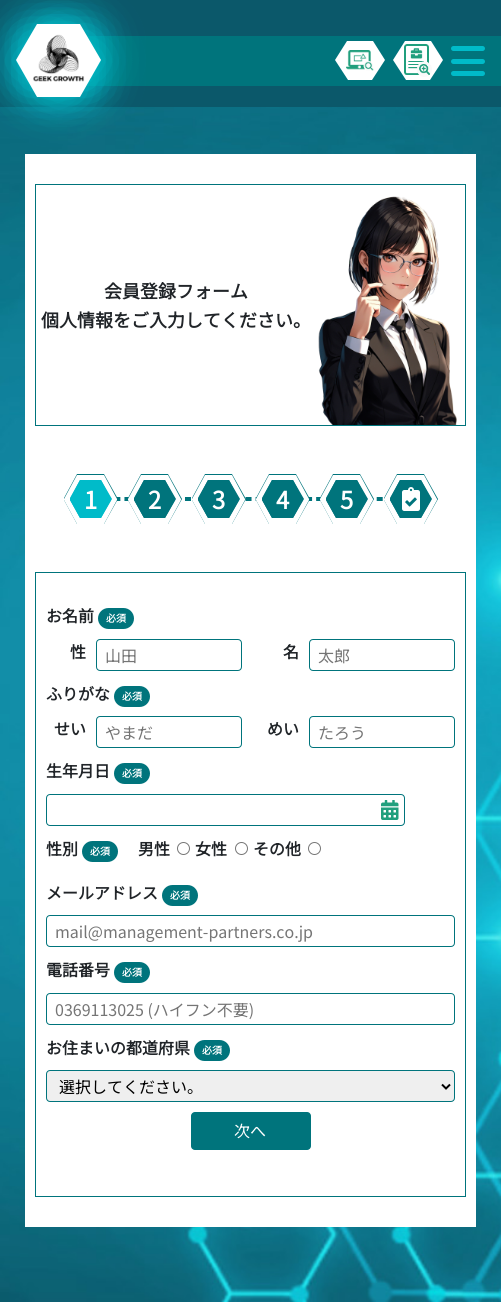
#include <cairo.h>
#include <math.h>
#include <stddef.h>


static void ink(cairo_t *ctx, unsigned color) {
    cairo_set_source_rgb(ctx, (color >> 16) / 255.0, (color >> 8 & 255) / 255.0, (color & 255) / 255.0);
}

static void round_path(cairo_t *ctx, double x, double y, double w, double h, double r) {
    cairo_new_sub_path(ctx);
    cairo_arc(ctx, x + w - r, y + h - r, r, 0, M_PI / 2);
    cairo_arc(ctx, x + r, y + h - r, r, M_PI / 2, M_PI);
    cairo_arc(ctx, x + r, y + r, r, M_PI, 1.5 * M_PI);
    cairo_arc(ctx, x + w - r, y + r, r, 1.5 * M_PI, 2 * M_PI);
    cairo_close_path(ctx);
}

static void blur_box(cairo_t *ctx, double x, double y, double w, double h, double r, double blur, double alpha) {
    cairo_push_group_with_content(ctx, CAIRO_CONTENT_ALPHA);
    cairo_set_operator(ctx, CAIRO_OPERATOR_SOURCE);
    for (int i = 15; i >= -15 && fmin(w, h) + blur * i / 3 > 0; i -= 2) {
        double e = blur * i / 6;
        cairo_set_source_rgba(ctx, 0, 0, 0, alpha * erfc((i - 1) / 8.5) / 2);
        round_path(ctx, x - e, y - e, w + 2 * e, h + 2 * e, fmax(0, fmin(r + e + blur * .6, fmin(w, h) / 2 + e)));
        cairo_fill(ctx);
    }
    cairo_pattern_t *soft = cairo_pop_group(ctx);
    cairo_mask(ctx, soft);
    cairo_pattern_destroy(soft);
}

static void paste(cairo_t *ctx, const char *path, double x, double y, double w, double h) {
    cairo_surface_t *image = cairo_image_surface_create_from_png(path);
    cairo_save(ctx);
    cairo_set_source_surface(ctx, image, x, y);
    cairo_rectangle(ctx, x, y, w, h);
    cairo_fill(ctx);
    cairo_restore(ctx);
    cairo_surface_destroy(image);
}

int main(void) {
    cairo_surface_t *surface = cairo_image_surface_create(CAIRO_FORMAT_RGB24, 501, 1302);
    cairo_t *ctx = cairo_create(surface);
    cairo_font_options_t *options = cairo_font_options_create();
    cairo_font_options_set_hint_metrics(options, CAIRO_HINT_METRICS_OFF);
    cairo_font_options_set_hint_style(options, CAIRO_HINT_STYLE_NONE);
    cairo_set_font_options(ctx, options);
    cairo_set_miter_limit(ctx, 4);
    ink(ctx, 0xFFFFFF);
    cairo_paint(ctx);
    ink(ctx, 0x0B586A);
    cairo_rectangle(ctx, 0, 0, 501, 107);
    cairo_fill(ctx);
    ink(ctx, 0x00747C);
    cairo_rectangle(ctx, 86, 36, 415, 50);
    cairo_fill(ctx);
    paste(ctx, "media/4.png", 0, 107, 501, 1195);
    ink(ctx, 0x00BBC9);
    blur_box(ctx, 39, 24, 40, 35, 0, 20, 1);
    blur_box(ctx, 55, 33, 41, 36, 0, 20, 1);
    blur_box(ctx, 55, 52, 41, 36, 0, 20, 1);
    ink(ctx, 0x00BBC9);
    cairo_new_path(ctx);
    cairo_move_to(ctx, 101, 61);
    cairo_line_to(ctx, 80, 96);
    cairo_line_to(ctx, 50, 79);
    cairo_line_to(ctx, 71, 44);
    cairo_close_path(ctx);
    cairo_fill(ctx);
    ink(ctx, 0x00BBC9);
    blur_box(ctx, 21, 52, 41, 36, 0, 20, 1);
    ink(ctx, 0xFFFFFF);
    cairo_rectangle(ctx, 25, 154, 451, 1073);
    cairo_fill(ctx);
    ink(ctx, 0x00BBC9);
    blur_box(ctx, 39, 62, 40, 35, 0, 20, 1);
    ink(ctx, 0x00BBC9);
    cairo_new_path(ctx);
    cairo_move_to(ctx, 37, 96);
    cairo_line_to(ctx, 16, 61);
    cairo_line_to(ctx, 46, 44);
    cairo_line_to(ctx, 67, 79);
    cairo_close_path(ctx);
    cairo_fill(ctx);
    ink(ctx, 0x00BBC9);
    blur_box(ctx, 21, 33, 41, 36, 0, 20, 1);
    ink(ctx, 0xFFFFFF);
    cairo_new_path(ctx);
    cairo_move_to(ctx, 37, 24);
    cairo_line_to(ctx, 16, 60);
    cairo_line_to(ctx, 37, 97);
    cairo_line_to(ctx, 80, 97);
    cairo_line_to(ctx, 101, 60);
    cairo_line_to(ctx, 80, 24);
    cairo_close_path(ctx);
    cairo_fill(ctx);
    paste(ctx, "media/1.png", 33, 34, 52, 48);
    cairo_new_path(ctx);
    cairo_move_to(ctx, 373, 41);
    cairo_line_to(ctx, 385, 60);
    cairo_line_to(ctx, 372, 80);
    cairo_line_to(ctx, 348, 80);
    cairo_line_to(ctx, 335, 60);
    cairo_line_to(ctx, 347, 41);
    cairo_close_path(ctx);
    cairo_fill(ctx);
    paste(ctx, "media/2.png", 346, 50, 28, 21);
    cairo_new_path(ctx);
    cairo_move_to(ctx, 431, 41);
    cairo_line_to(ctx, 443, 60);
    cairo_line_to(ctx, 430, 80);
    cairo_line_to(ctx, 406, 80);
    cairo_line_to(ctx, 393, 60);
    cairo_line_to(ctx, 405, 41);
    cairo_close_path(ctx);
    cairo_fill(ctx);
    paste(ctx, "media/3.png", 404, 44, 28, 33);
    ink(ctx, 0x00BBC9);
    round_path(ctx, 451, 46, 34, 5, 2.5);
    cairo_fill(ctx);
    round_path(ctx, 451, 59, 34, 5, 2.5);
    cairo_fill(ctx);
    round_path(ctx, 451, 71, 34, 5, 2.5);
    cairo_fill(ctx);
    cairo_rectangle(ctx, 35.5, 184.5, 430, 241);
    ink(ctx, 0x00747C);
    cairo_set_line_width(ctx, 1);
    cairo_stroke(ctx);
    cairo_select_font_face(ctx, "Noto Sans JP", CAIRO_FONT_SLANT_NORMAL, CAIRO_FONT_WEIGHT_BOLD);
    cairo_set_font_size(ctx, 18);
    ink(ctx, 0x212529);
    cairo_move_to(ctx, 104, 298);
    cairo_show_text(ctx, "会員登録フォーム");
    cairo_move_to(ctx, 41, 327);
    cairo_show_text(ctx, "個人情報をご入力してください。");
    paste(ctx, "media/5.png", 318, 196, 139, 229);
    cairo_new_path(ctx);
    cairo_move_to(ctx, 74, 498);
    cairo_line_to(ctx, 433, 498);
    ink(ctx, 0x00747C);
    cairo_set_line_width(ctx, 2);
    cairo_set_dash(ctx, (double[]){6, 4.09}, 2, 0);
    cairo_stroke(ctx);
    cairo_new_path(ctx);
    cairo_move_to(ctx, 74, 500);
    cairo_line_to(ctx, 433, 500);
    cairo_stroke(ctx);
    cairo_new_path(ctx);
    cairo_move_to(ctx, 77, 474);
    cairo_line_to(ctx, 104, 474);
    cairo_line_to(ctx, 118, 499);
    cairo_line_to(ctx, 104, 524);
    cairo_line_to(ctx, 77, 524);
    cairo_line_to(ctx, 64, 500);
    cairo_line_to(ctx, 64, 498);
    cairo_close_path(ctx);
    cairo_fill(ctx);
    ink(ctx, 0xFFFFFF);
    cairo_new_path(ctx);
    cairo_move_to(ctx, 77, 475);
    cairo_line_to(ctx, 104, 475);
    cairo_line_to(ctx, 117, 499);
    cairo_line_to(ctx, 117, 500);
    cairo_line_to(ctx, 104, 524);
    cairo_line_to(ctx, 77, 524);
    cairo_line_to(ctx, 64, 500);
    cairo_line_to(ctx, 64, 499);
    cairo_close_path(ctx);
    cairo_fill(ctx);
    ink(ctx, 0x00BBC9);
    cairo_new_path(ctx);
    cairo_move_to(ctx, 80, 480);
    cairo_line_to(ctx, 101, 480);
    cairo_line_to(ctx, 112, 499);
    cairo_line_to(ctx, 101, 518);
    cairo_line_to(ctx, 80, 518);
    cairo_line_to(ctx, 70, 500);
    cairo_line_to(ctx, 70, 498);
    cairo_close_path(ctx);
    cairo_fill(ctx);
    cairo_new_path(ctx);
    cairo_move_to(ctx, 80, 480);
    cairo_line_to(ctx, 101, 480);
    cairo_line_to(ctx, 111, 499);
    cairo_line_to(ctx, 111, 500);
    cairo_line_to(ctx, 101, 518);
    cairo_line_to(ctx, 80, 518);
    cairo_line_to(ctx, 70, 500);
    cairo_line_to(ctx, 70, 499);
    cairo_close_path(ctx);
    cairo_fill(ctx);
    cairo_set_font_size(ctx, 24);
    ink(ctx, 0xFFFFFF);
    cairo_move_to(ctx, 84, 509);
    cairo_show_text(ctx, "1");
    ink(ctx, 0x00747C);
    cairo_new_path(ctx);
    cairo_move_to(ctx, 141, 474);
    cairo_line_to(ctx, 168, 474);
    cairo_line_to(ctx, 182, 499);
    cairo_line_to(ctx, 168, 524);
    cairo_line_to(ctx, 141, 524);
    cairo_line_to(ctx, 128, 500);
    cairo_line_to(ctx, 128, 498);
    cairo_close_path(ctx);
    cairo_fill(ctx);
    ink(ctx, 0xFFFFFF);
    cairo_new_path(ctx);
    cairo_move_to(ctx, 141, 475);
    cairo_line_to(ctx, 168, 475);
    cairo_line_to(ctx, 181, 499);
    cairo_line_to(ctx, 181, 500);
    cairo_line_to(ctx, 168, 524);
    cairo_line_to(ctx, 141, 524);
    cairo_line_to(ctx, 128, 500);
    cairo_line_to(ctx, 128, 499);
    cairo_close_path(ctx);
    cairo_fill(ctx);
    ink(ctx, 0x00747C);
    cairo_new_path(ctx);
    cairo_move_to(ctx, 144, 480);
    cairo_line_to(ctx, 165, 480);
    cairo_line_to(ctx, 176, 499);
    cairo_line_to(ctx, 165, 518);
    cairo_line_to(ctx, 144, 518);
    cairo_line_to(ctx, 134, 500);
    cairo_line_to(ctx, 134, 498);
    cairo_close_path(ctx);
    cairo_fill(ctx);
    cairo_new_path(ctx);
    cairo_move_to(ctx, 144, 480);
    cairo_line_to(ctx, 165, 480);
    cairo_line_to(ctx, 175, 499);
    cairo_line_to(ctx, 175, 500);
    cairo_line_to(ctx, 165, 518);
    cairo_line_to(ctx, 144, 518);
    cairo_line_to(ctx, 134, 500);
    cairo_line_to(ctx, 134, 499);
    cairo_close_path(ctx);
    cairo_fill(ctx);
    ink(ctx, 0xFFFFFF);
    cairo_move_to(ctx, 148, 509);
    cairo_show_text(ctx, "2");
    ink(ctx, 0x00747C);
    cairo_new_path(ctx);
    cairo_move_to(ctx, 205, 474);
    cairo_line_to(ctx, 232, 474);
    cairo_line_to(ctx, 246, 499);
    cairo_line_to(ctx, 232, 524);
    cairo_line_to(ctx, 205, 524);
    cairo_line_to(ctx, 192, 500);
    cairo_line_to(ctx, 192, 498);
    cairo_close_path(ctx);
    cairo_fill(ctx);
    ink(ctx, 0xFFFFFF);
    cairo_new_path(ctx);
    cairo_move_to(ctx, 205, 475);
    cairo_line_to(ctx, 232, 475);
    cairo_line_to(ctx, 245, 499);
    cairo_line_to(ctx, 245, 500);
    cairo_line_to(ctx, 232, 524);
    cairo_line_to(ctx, 205, 524);
    cairo_line_to(ctx, 192, 500);
    cairo_line_to(ctx, 192, 499);
    cairo_close_path(ctx);
    cairo_fill(ctx);
    ink(ctx, 0x00747C);
    cairo_new_path(ctx);
    cairo_move_to(ctx, 208, 480);
    cairo_line_to(ctx, 229, 480);
    cairo_line_to(ctx, 240, 499);
    cairo_line_to(ctx, 229, 518);
    cairo_line_to(ctx, 208, 518);
    cairo_line_to(ctx, 198, 500);
    cairo_line_to(ctx, 198, 498);
    cairo_close_path(ctx);
    cairo_fill(ctx);
    cairo_new_path(ctx);
    cairo_move_to(ctx, 208, 480);
    cairo_line_to(ctx, 229, 480);
    cairo_line_to(ctx, 239, 499);
    cairo_line_to(ctx, 239, 500);
    cairo_line_to(ctx, 229, 518);
    cairo_line_to(ctx, 208, 518);
    cairo_line_to(ctx, 198, 500);
    cairo_line_to(ctx, 198, 499);
    cairo_close_path(ctx);
    cairo_fill(ctx);
    ink(ctx, 0xFFFFFF);
    cairo_move_to(ctx, 212, 509);
    cairo_show_text(ctx, "3");
    ink(ctx, 0x00747C);
    cairo_new_path(ctx);
    cairo_move_to(ctx, 269, 474);
    cairo_line_to(ctx, 296, 474);
    cairo_line_to(ctx, 310, 499);
    cairo_line_to(ctx, 296, 524);
    cairo_line_to(ctx, 269, 524);
    cairo_line_to(ctx, 256, 500);
    cairo_line_to(ctx, 256, 498);
    cairo_close_path(ctx);
    cairo_fill(ctx);
    ink(ctx, 0xFFFFFF);
    cairo_new_path(ctx);
    cairo_move_to(ctx, 269, 475);
    cairo_line_to(ctx, 296, 475);
    cairo_line_to(ctx, 309, 499);
    cairo_line_to(ctx, 309, 500);
    cairo_line_to(ctx, 296, 524);
    cairo_line_to(ctx, 269, 524);
    cairo_line_to(ctx, 256, 500);
    cairo_line_to(ctx, 256, 499);
    cairo_close_path(ctx);
    cairo_fill(ctx);
    ink(ctx, 0x00747C);
    cairo_new_path(ctx);
    cairo_move_to(ctx, 272, 480);
    cairo_line_to(ctx, 293, 480);
    cairo_line_to(ctx, 304, 499);
    cairo_line_to(ctx, 293, 518);
    cairo_line_to(ctx, 272, 518);
    cairo_line_to(ctx, 262, 500);
    cairo_line_to(ctx, 262, 498);
    cairo_close_path(ctx);
    cairo_fill(ctx);
    cairo_new_path(ctx);
    cairo_move_to(ctx, 272, 480);
    cairo_line_to(ctx, 293, 480);
    cairo_line_to(ctx, 303, 499);
    cairo_line_to(ctx, 303, 500);
    cairo_line_to(ctx, 293, 518);
    cairo_line_to(ctx, 272, 518);
    cairo_line_to(ctx, 262, 500);
    cairo_line_to(ctx, 262, 499);
    cairo_close_path(ctx);
    cairo_fill(ctx);
    ink(ctx, 0xFFFFFF);
    cairo_move_to(ctx, 276, 509);
    cairo_show_text(ctx, "4");
    ink(ctx, 0x00747C);
    cairo_new_path(ctx);
    cairo_move_to(ctx, 333, 474);
    cairo_line_to(ctx, 360, 474);
    cairo_line_to(ctx, 374, 499);
    cairo_line_to(ctx, 360, 524);
    cairo_line_to(ctx, 333, 524);
    cairo_line_to(ctx, 320, 500);
    cairo_line_to(ctx, 320, 498);
    cairo_close_path(ctx);
    cairo_fill(ctx);
    ink(ctx, 0xFFFFFF);
    cairo_new_path(ctx);
    cairo_move_to(ctx, 333, 475);
    cairo_line_to(ctx, 360, 475);
    cairo_line_to(ctx, 373, 499);
    cairo_line_to(ctx, 373, 500);
    cairo_line_to(ctx, 360, 524);
    cairo_line_to(ctx, 333, 524);
    cairo_line_to(ctx, 320, 500);
    cairo_line_to(ctx, 320, 499);
    cairo_close_path(ctx);
    cairo_fill(ctx);
    ink(ctx, 0x00747C);
    cairo_new_path(ctx);
    cairo_move_to(ctx, 336, 480);
    cairo_line_to(ctx, 357, 480);
    cairo_line_to(ctx, 368, 499);
    cairo_line_to(ctx, 357, 518);
    cairo_line_to(ctx, 336, 518);
    cairo_line_to(ctx, 326, 500);
    cairo_line_to(ctx, 326, 498);
    cairo_close_path(ctx);
    cairo_fill(ctx);
    cairo_new_path(ctx);
    cairo_move_to(ctx, 336, 480);
    cairo_line_to(ctx, 357, 480);
    cairo_line_to(ctx, 367, 499);
    cairo_line_to(ctx, 367, 500);
    cairo_line_to(ctx, 357, 518);
    cairo_line_to(ctx, 336, 518);
    cairo_line_to(ctx, 326, 500);
    cairo_line_to(ctx, 326, 499);
    cairo_close_path(ctx);
    cairo_fill(ctx);
    ink(ctx, 0xFFFFFF);
    cairo_move_to(ctx, 340, 509);
    cairo_show_text(ctx, "5");
    ink(ctx, 0x00747C);
    cairo_new_path(ctx);
    cairo_move_to(ctx, 397, 474);
    cairo_line_to(ctx, 424, 474);
    cairo_line_to(ctx, 438, 499);
    cairo_line_to(ctx, 424, 524);
    cairo_line_to(ctx, 397, 524);
    cairo_line_to(ctx, 384, 500);
    cairo_line_to(ctx, 384, 498);
    cairo_close_path(ctx);
    cairo_fill(ctx);
    ink(ctx, 0xFFFFFF);
    cairo_new_path(ctx);
    cairo_move_to(ctx, 397, 475);
    cairo_line_to(ctx, 424, 475);
    cairo_line_to(ctx, 437, 499);
    cairo_line_to(ctx, 437, 500);
    cairo_line_to(ctx, 424, 524);
    cairo_line_to(ctx, 397, 524);
    cairo_line_to(ctx, 384, 500);
    cairo_line_to(ctx, 384, 499);
    cairo_close_path(ctx);
    cairo_fill(ctx);
    ink(ctx, 0x00747C);
    cairo_new_path(ctx);
    cairo_move_to(ctx, 400, 480);
    cairo_line_to(ctx, 421, 480);
    cairo_line_to(ctx, 432, 499);
    cairo_line_to(ctx, 421, 518);
    cairo_line_to(ctx, 400, 518);
    cairo_line_to(ctx, 390, 500);
    cairo_line_to(ctx, 390, 498);
    cairo_close_path(ctx);
    cairo_fill(ctx);
    cairo_new_path(ctx);
    cairo_move_to(ctx, 400, 480);
    cairo_line_to(ctx, 421, 480);
    cairo_line_to(ctx, 431, 499);
    cairo_line_to(ctx, 431, 500);
    cairo_line_to(ctx, 421, 518);
    cairo_line_to(ctx, 400, 518);
    cairo_line_to(ctx, 390, 500);
    cairo_line_to(ctx, 390, 499);
    cairo_close_path(ctx);
    cairo_fill(ctx);
    paste(ctx, "media/6.png", 402, 487, 18, 24);
    cairo_rectangle(ctx, 35.5, 572.5, 430, 624);
    cairo_set_line_width(ctx, 1);
    cairo_set_dash(ctx, NULL, 0, 0);
    cairo_stroke(ctx);
    cairo_set_font_size(ctx, 16);
    ink(ctx, 0x212529);
    cairo_move_to(ctx, 46, 622);
    cairo_show_text(ctx, "お名前");
    ink(ctx, 0x00747C);
    round_path(ctx, 98, 608, 36, 21, 10.5);
    cairo_fill(ctx);
    cairo_set_font_size(ctx, 10);
    ink(ctx, 0xFFFFFF);
    cairo_move_to(ctx, 106, 622);
    cairo_show_text(ctx, "必須");
    cairo_set_font_size(ctx, 16);
    ink(ctx, 0x212529);
    cairo_move_to(ctx, 70, 658);
    cairo_show_text(ctx, "性");
    round_path(ctx, 96.5, 639.5, 145, 31, 3.5);
    ink(ctx, 0x00747C);
    cairo_stroke(ctx);
    cairo_select_font_face(ctx, "Noto Sans JP", CAIRO_FONT_SLANT_NORMAL, CAIRO_FONT_WEIGHT_NORMAL);
    ink(ctx, 0x757575);
    cairo_move_to(ctx, 105, 662);
    cairo_show_text(ctx, "山田");
    cairo_select_font_face(ctx, "Noto Sans JP", CAIRO_FONT_SLANT_NORMAL, CAIRO_FONT_WEIGHT_BOLD);
    ink(ctx, 0x212529);
    cairo_move_to(ctx, 283, 658);
    cairo_show_text(ctx, "名");
    round_path(ctx, 309.5, 639.5, 145, 31, 3.5);
    ink(ctx, 0x00747C);
    cairo_stroke(ctx);
    cairo_select_font_face(ctx, "Noto Sans JP", CAIRO_FONT_SLANT_NORMAL, CAIRO_FONT_WEIGHT_NORMAL);
    ink(ctx, 0x757575);
    cairo_move_to(ctx, 318, 662);
    cairo_show_text(ctx, "太郎");
    cairo_select_font_face(ctx, "Noto Sans JP", CAIRO_FONT_SLANT_NORMAL, CAIRO_FONT_WEIGHT_BOLD);
    ink(ctx, 0x212529);
    cairo_move_to(ctx, 46, 700);
    cairo_show_text(ctx, "ふりがな");
    ink(ctx, 0x00747C);
    round_path(ctx, 114, 686, 36, 21, 10.5);
    cairo_fill(ctx);
    cairo_set_font_size(ctx, 10);
    ink(ctx, 0xFFFFFF);
    cairo_move_to(ctx, 122, 700);
    cairo_show_text(ctx, "必須");
    cairo_set_font_size(ctx, 16);
    ink(ctx, 0x212529);
    cairo_move_to(ctx, 54, 735);
    cairo_show_text(ctx, "せい");
    round_path(ctx, 96.5, 716.5, 145, 31, 3.5);
    ink(ctx, 0x00747C);
    cairo_stroke(ctx);
    cairo_select_font_face(ctx, "Noto Sans JP", CAIRO_FONT_SLANT_NORMAL, CAIRO_FONT_WEIGHT_NORMAL);
    ink(ctx, 0x757575);
    cairo_move_to(ctx, 105, 739);
    cairo_show_text(ctx, "やまだ");
    cairo_select_font_face(ctx, "Noto Sans JP", CAIRO_FONT_SLANT_NORMAL, CAIRO_FONT_WEIGHT_BOLD);
    ink(ctx, 0x212529);
    cairo_move_to(ctx, 267, 735);
    cairo_show_text(ctx, "めい");
    round_path(ctx, 309.5, 716.5, 145, 31, 3.5);
    ink(ctx, 0x00747C);
    cairo_stroke(ctx);
    cairo_select_font_face(ctx, "Noto Sans JP", CAIRO_FONT_SLANT_NORMAL, CAIRO_FONT_WEIGHT_NORMAL);
    ink(ctx, 0x757575);
    cairo_move_to(ctx, 318, 739);
    cairo_show_text(ctx, "たろう");
    cairo_select_font_face(ctx, "Noto Sans JP", CAIRO_FONT_SLANT_NORMAL, CAIRO_FONT_WEIGHT_BOLD);
    ink(ctx, 0x212529);
    cairo_move_to(ctx, 46, 777);
    cairo_show_text(ctx, "生年月日");
    ink(ctx, 0x00747C);
    round_path(ctx, 114, 763, 36, 21, 10.5);
    cairo_fill(ctx);
    cairo_set_font_size(ctx, 10);
    ink(ctx, 0xFFFFFF);
    cairo_move_to(ctx, 122, 777);
    cairo_show_text(ctx, "必須");
    paste(ctx, "media/7.png", 381, 800, 18, 20);
    round_path(ctx, 46.5, 794.5, 358, 31, 3.5);
    ink(ctx, 0x00747C);
    cairo_stroke(ctx);
    cairo_set_font_size(ctx, 16);
    ink(ctx, 0x212529);
    cairo_move_to(ctx, 46, 855);
    cairo_show_text(ctx, "性別");
    ink(ctx, 0x00747C);
    round_path(ctx, 82, 841, 36, 21, 10.5);
    cairo_fill(ctx);
    cairo_set_font_size(ctx, 10);
    ink(ctx, 0xFFFFFF);
    cairo_move_to(ctx, 90, 855);
    cairo_show_text(ctx, "必須");
    cairo_set_font_size(ctx, 16);
    ink(ctx, 0x212529);
    cairo_move_to(ctx, 138, 855);
    cairo_show_text(ctx, "男性");
    cairo_new_path(ctx);
    cairo_arc(ctx, 183.5, 848.5, 6, 0, 2 * M_PI);
    ink(ctx, 0x767676);
    cairo_stroke(ctx);
    ink(ctx, 0x212529);
    cairo_move_to(ctx, 195, 855);
    cairo_show_text(ctx, "女性");
    cairo_new_path(ctx);
    cairo_arc(ctx, 241.5, 848.5, 6, 0, 2 * M_PI);
    ink(ctx, 0x767676);
    cairo_stroke(ctx);
    ink(ctx, 0x212529);
    cairo_move_to(ctx, 253, 855);
    cairo_show_text(ctx, "その他");
    cairo_new_path(ctx);
    cairo_arc(ctx, 314.5, 848.5, 6, 0, 2 * M_PI);
    ink(ctx, 0x767676);
    cairo_stroke(ctx);
    ink(ctx, 0x212529);
    cairo_move_to(ctx, 46, 899);
    cairo_show_text(ctx, "メールアドレス");
    ink(ctx, 0x00747C);
    round_path(ctx, 162, 885, 36, 21, 10.5);
    cairo_fill(ctx);
    cairo_set_font_size(ctx, 10);
    ink(ctx, 0xFFFFFF);
    cairo_move_to(ctx, 170, 899);
    cairo_show_text(ctx, "必須");
    round_path(ctx, 46.5, 915.5, 408, 31, 3.5);
    ink(ctx, 0x00747C);
    cairo_stroke(ctx);
    cairo_select_font_face(ctx, "Noto Sans JP", CAIRO_FONT_SLANT_NORMAL, CAIRO_FONT_WEIGHT_NORMAL);
    cairo_set_font_size(ctx, 16);
    ink(ctx, 0x757575);
    cairo_move_to(ctx, 55, 938);
    cairo_show_text(ctx, "mail@management-partners.co.jp");
    cairo_select_font_face(ctx, "Noto Sans JP", CAIRO_FONT_SLANT_NORMAL, CAIRO_FONT_WEIGHT_BOLD);
    ink(ctx, 0x212529);
    cairo_move_to(ctx, 46, 976);
    cairo_show_text(ctx, "電話番号");
    ink(ctx, 0x00747C);
    round_path(ctx, 114, 962, 36, 21, 10.5);
    cairo_fill(ctx);
    cairo_set_font_size(ctx, 10);
    ink(ctx, 0xFFFFFF);
    cairo_move_to(ctx, 122, 976);
    cairo_show_text(ctx, "必須");
    round_path(ctx, 46.5, 993.5, 408, 31, 3.5);
    ink(ctx, 0x00747C);
    cairo_stroke(ctx);
    cairo_select_font_face(ctx, "Noto Sans JP", CAIRO_FONT_SLANT_NORMAL, CAIRO_FONT_WEIGHT_NORMAL);
    cairo_set_font_size(ctx, 16);
    ink(ctx, 0x757575);
    cairo_move_to(ctx, 55, 1016);
    cairo_show_text(ctx, "0369113025 (ハイフン不要)");
    cairo_select_font_face(ctx, "Noto Sans JP", CAIRO_FONT_SLANT_NORMAL, CAIRO_FONT_WEIGHT_BOLD);
    ink(ctx, 0x212529);
    cairo_move_to(ctx, 46, 1054);
    cairo_show_text(ctx, "お住まいの都道府県");
    ink(ctx, 0x00747C);
    round_path(ctx, 194, 1040, 36, 21, 10.5);
    cairo_fill(ctx);
    cairo_set_font_size(ctx, 10);
    ink(ctx, 0xFFFFFF);
    cairo_move_to(ctx, 202, 1054);
    cairo_show_text(ctx, "必須");
    ink(ctx, 0xEFEFEF);
    round_path(ctx, 46.5, 1070.5, 408, 31, 3.5);
    cairo_fill_preserve(ctx);
    ink(ctx, 0x00747C);
    cairo_stroke(ctx);
    cairo_new_path(ctx);
    cairo_move_to(ctx, 442, 1084.5);
    cairo_line_to(ctx, 446, 1088.5);
    cairo_line_to(ctx, 450, 1084.5);
    ink(ctx, 0x000000);
    cairo_set_line_width(ctx, 2);
    cairo_stroke(ctx);
    cairo_select_font_face(ctx, "Noto Sans JP", CAIRO_FONT_SLANT_NORMAL, CAIRO_FONT_WEIGHT_NORMAL);
    cairo_set_font_size(ctx, 16);
    cairo_move_to(ctx, 59, 1093);
    cairo_show_text(ctx, "選択してください。");
    ink(ctx, 0x00747C);
    round_path(ctx, 191, 1112, 120, 38, 4);
    cairo_fill(ctx);
    ink(ctx, 0xFFFFFF);
    cairo_move_to(ctx, 234, 1137);
    cairo_show_text(ctx, "次へ");
    cairo_surface_write_to_png(surface, "image.png");
    cairo_font_options_destroy(options);
    cairo_destroy(ctx);
    cairo_surface_destroy(surface);
    return 0;
}
